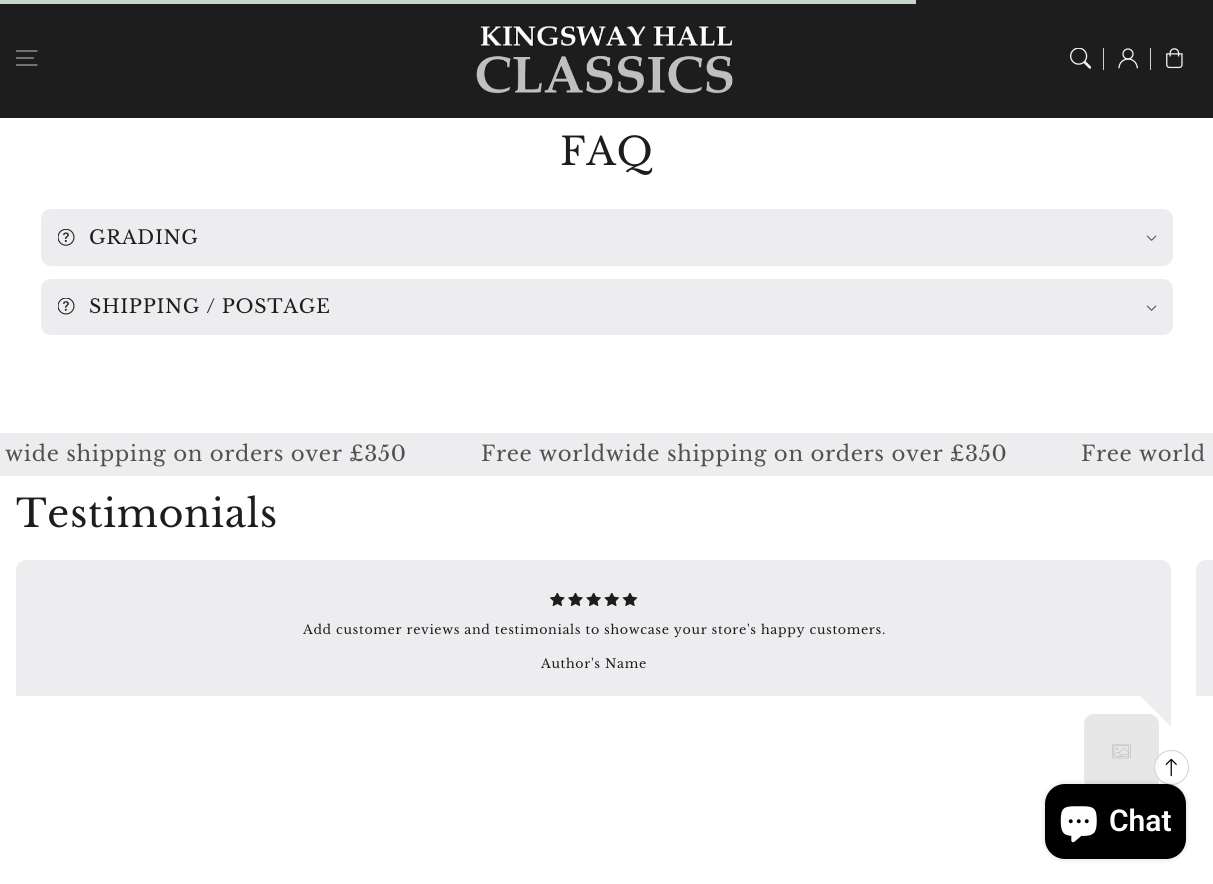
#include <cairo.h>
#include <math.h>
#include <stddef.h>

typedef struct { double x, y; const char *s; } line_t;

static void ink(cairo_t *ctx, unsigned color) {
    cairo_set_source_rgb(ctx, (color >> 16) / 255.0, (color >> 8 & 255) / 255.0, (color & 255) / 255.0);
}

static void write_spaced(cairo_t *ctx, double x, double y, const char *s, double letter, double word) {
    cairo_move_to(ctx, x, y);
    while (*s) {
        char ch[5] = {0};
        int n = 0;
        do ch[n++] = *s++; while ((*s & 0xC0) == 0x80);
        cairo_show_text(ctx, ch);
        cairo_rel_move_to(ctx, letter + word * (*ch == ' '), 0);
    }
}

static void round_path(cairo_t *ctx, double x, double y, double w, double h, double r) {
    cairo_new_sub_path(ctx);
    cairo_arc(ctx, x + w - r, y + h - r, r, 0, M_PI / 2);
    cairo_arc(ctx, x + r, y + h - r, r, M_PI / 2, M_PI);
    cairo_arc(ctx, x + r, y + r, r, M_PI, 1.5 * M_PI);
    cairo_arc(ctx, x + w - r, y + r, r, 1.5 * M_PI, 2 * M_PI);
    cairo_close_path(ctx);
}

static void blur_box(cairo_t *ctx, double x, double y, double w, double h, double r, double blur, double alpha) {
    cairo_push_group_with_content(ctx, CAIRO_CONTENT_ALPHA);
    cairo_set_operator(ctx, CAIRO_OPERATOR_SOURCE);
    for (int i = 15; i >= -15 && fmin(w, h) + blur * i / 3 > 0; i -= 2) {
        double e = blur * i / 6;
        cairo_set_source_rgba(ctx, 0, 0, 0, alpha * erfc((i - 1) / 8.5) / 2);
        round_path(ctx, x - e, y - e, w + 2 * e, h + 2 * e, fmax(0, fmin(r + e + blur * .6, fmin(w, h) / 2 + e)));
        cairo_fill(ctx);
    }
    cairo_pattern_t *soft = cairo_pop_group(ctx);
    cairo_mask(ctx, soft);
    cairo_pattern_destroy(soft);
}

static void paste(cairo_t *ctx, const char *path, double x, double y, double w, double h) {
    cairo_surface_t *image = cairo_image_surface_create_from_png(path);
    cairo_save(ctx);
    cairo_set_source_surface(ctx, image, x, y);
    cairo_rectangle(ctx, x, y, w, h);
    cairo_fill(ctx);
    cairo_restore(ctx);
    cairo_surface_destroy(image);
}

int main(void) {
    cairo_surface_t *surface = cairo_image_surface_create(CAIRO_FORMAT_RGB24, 1213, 884);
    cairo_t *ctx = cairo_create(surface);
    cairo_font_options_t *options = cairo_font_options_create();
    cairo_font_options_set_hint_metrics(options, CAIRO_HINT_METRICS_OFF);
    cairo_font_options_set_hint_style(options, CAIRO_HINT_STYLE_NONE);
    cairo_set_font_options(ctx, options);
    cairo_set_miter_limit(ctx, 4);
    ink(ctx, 0xFFFFFF);
    cairo_paint(ctx);
    ink(ctx, 0x1D1D1D);
    cairo_rectangle(ctx, 0, 0, 1213, 118);
    cairo_fill(ctx);
    cairo_new_path(ctx);
    cairo_move_to(ctx, 16, 65);
    cairo_line_to(ctx, 37.5, 65);
    cairo_move_to(ctx, 16, 58);
    cairo_line_to(ctx, 34, 58);
    cairo_move_to(ctx, 16, 51);
    cairo_line_to(ctx, 37.5, 51);
    ink(ctx, 0xF2F2F2);
    cairo_set_line_width(ctx, 0.8);
    cairo_stroke(ctx);
    paste(ctx, "media/1.png", 476, 25, 258, 69);
    paste(ctx, "media/2.png", 1070, 48, 21, 21);
    ink(ctx, 0xD1D1D1);
    cairo_rectangle(ctx, 1103, 48, 1, 22);
    cairo_fill(ctx);
    paste(ctx, "media/3.png", 1118, 48, 20, 21);
    cairo_rectangle(ctx, 1150, 48, 1, 22);
    cairo_fill(ctx);
    paste(ctx, "media/4.png", 1166, 48, 17, 21);
    ink(ctx, 0xC7D5CB);
    cairo_rectangle(ctx, 0, 0, 916, 4);
    cairo_fill(ctx);
    cairo_select_font_face(ctx, "Libre Baskerville", CAIRO_FONT_SLANT_NORMAL, CAIRO_FONT_WEIGHT_NORMAL);
    cairo_set_font_size(ctx, 38.25);
    ink(ctx, 0x1D1D1D);
    write_spaced(ctx, 560, 165, "FAQ", 0.65, 0);
    ink(ctx, 0xEDEDEF);
    round_path(ctx, 41, 209, 1132, 57, 10);
    cairo_fill(ctx);
    paste(ctx, "media/5.png", 58, 229, 17, 17);
    cairo_set_font_size(ctx, 19.1);
    ink(ctx, 0x1D1D1D);
    write_spaced(ctx, 89, 244, "GRADING", 0.65, 0);
    paste(ctx, "media/6.png", 1146, 235, 11, 6);
    ink(ctx, 0xEDEDEF);
    round_path(ctx, 41, 279, 1132, 56, 10);
    cairo_fill(ctx);
    paste(ctx, "media/7.png", 58, 298, 17, 17);
    ink(ctx, 0x1D1D1D);
    write_spaced(ctx, 89, 313, "SHIPPING / POSTAGE", 0.65, 0);
    paste(ctx, "media/6.png", 1146, 305, 11, 6);
    ink(ctx, 0xEDEDEF);
    cairo_rectangle(ctx, 0, 433, 1213, 43);
    cairo_fill(ctx);
    cairo_set_font_size(ctx, 21.25);
    ink(ctx, 0x515152);
    {
        static const line_t items[] = {
            {5, 461, "wide shipping on orders over £350"},
            {481, 461, "Free worldwide shipping on orders over £350"},
            {1081, 461, "Free world"},
        };
        for (size_t i = 0; i < sizeof items / sizeof *items; i++) {
            write_spaced(ctx, items[i].x, items[i].y, items[i].s, 0.65, 0);
        }
    }
    cairo_set_font_size(ctx, 38.25);
    ink(ctx, 0x1D1D1D);
    write_spaced(ctx, 16, 527, "Testimonials", 0.65, 0);
    ink(ctx, 0xEDEDEF);
    cairo_new_path(ctx);
    cairo_move_to(ctx, 26, 560);
    cairo_line_to(ctx, 1161, 560);
    cairo_curve_to(ctx, 1166.5, 560, 1171, 564.5, 1171, 570);
    cairo_line_to(ctx, 1171, 696);
    cairo_line_to(ctx, 16, 696);
    cairo_line_to(ctx, 16, 570);
    cairo_curve_to(ctx, 16, 564.5, 20.5, 560, 26, 560);
    cairo_close_path(ctx);
    cairo_fill(ctx);
    paste(ctx, "media/8.png", 550, 593, 88, 13);
    cairo_set_font_size(ctx, 12.65);
    ink(ctx, 0x1D1D1D);
    write_spaced(ctx, 303, 634, "Add customer reviews and testimonials to showcase your store's happy customers.", 0.65, 0);
    write_spaced(ctx, 541, 668, "Author's Name", 0.65, 0);
    ink(ctx, 0xE7E7E7);
    round_path(ctx, 1084, 714, 75, 75, 10);
    cairo_fill(ctx);
    ink(ctx, 0xEDEDEF);
    cairo_new_path(ctx);
    cairo_move_to(ctx, 1171, 695.5);
    cairo_line_to(ctx, 1171, 726.5);
    cairo_line_to(ctx, 1140, 695.5);
    cairo_close_path(ctx);
    cairo_fill(ctx);
    paste(ctx, "media/9.png", 1112, 744, 19, 15);
    cairo_new_path(ctx);
    cairo_move_to(ctx, 1206, 560);
    cairo_line_to(ctx, 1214, 560);
    cairo_line_to(ctx, 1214, 696);
    cairo_line_to(ctx, 1196, 696);
    cairo_line_to(ctx, 1196, 570);
    cairo_curve_to(ctx, 1196, 564.5, 1200.5, 560, 1206, 560);
    cairo_close_path(ctx);
    cairo_fill(ctx);
    cairo_set_source_rgba(ctx, 1, 1, 1, 0.8);
    cairo_arc(ctx, 1171.5, 767.5, 17, 0, 2 * M_PI);
    cairo_fill_preserve(ctx);
    ink(ctx, 0xD1D1D1);
    cairo_set_line_width(ctx, 1);
    cairo_stroke(ctx);
    paste(ctx, "media/10.png", 1165, 758, 12, 19);
    ink(ctx, 0x000000);
    blur_box(ctx, 1045, 784, 141, 75, 20, 3, 0.15);
    ink(ctx, 0x000000);
    round_path(ctx, 1045, 784, 141, 75, 20);
    cairo_fill(ctx);
    paste(ctx, "media/11.png", 1060, 806, 37, 37);
    cairo_select_font_face(ctx, "Roboto SemiBold", CAIRO_FONT_SLANT_NORMAL, CAIRO_FONT_WEIGHT_NORMAL);
    cairo_set_font_size(ctx, 30);
    ink(ctx, 0xFFFFFF);
    cairo_move_to(ctx, 1109, 831);
    cairo_show_text(ctx, "Chat");
    cairo_surface_write_to_png(surface, "image.png");
    cairo_font_options_destroy(options);
    cairo_destroy(ctx);
    cairo_surface_destroy(surface);
    return 0;
}
